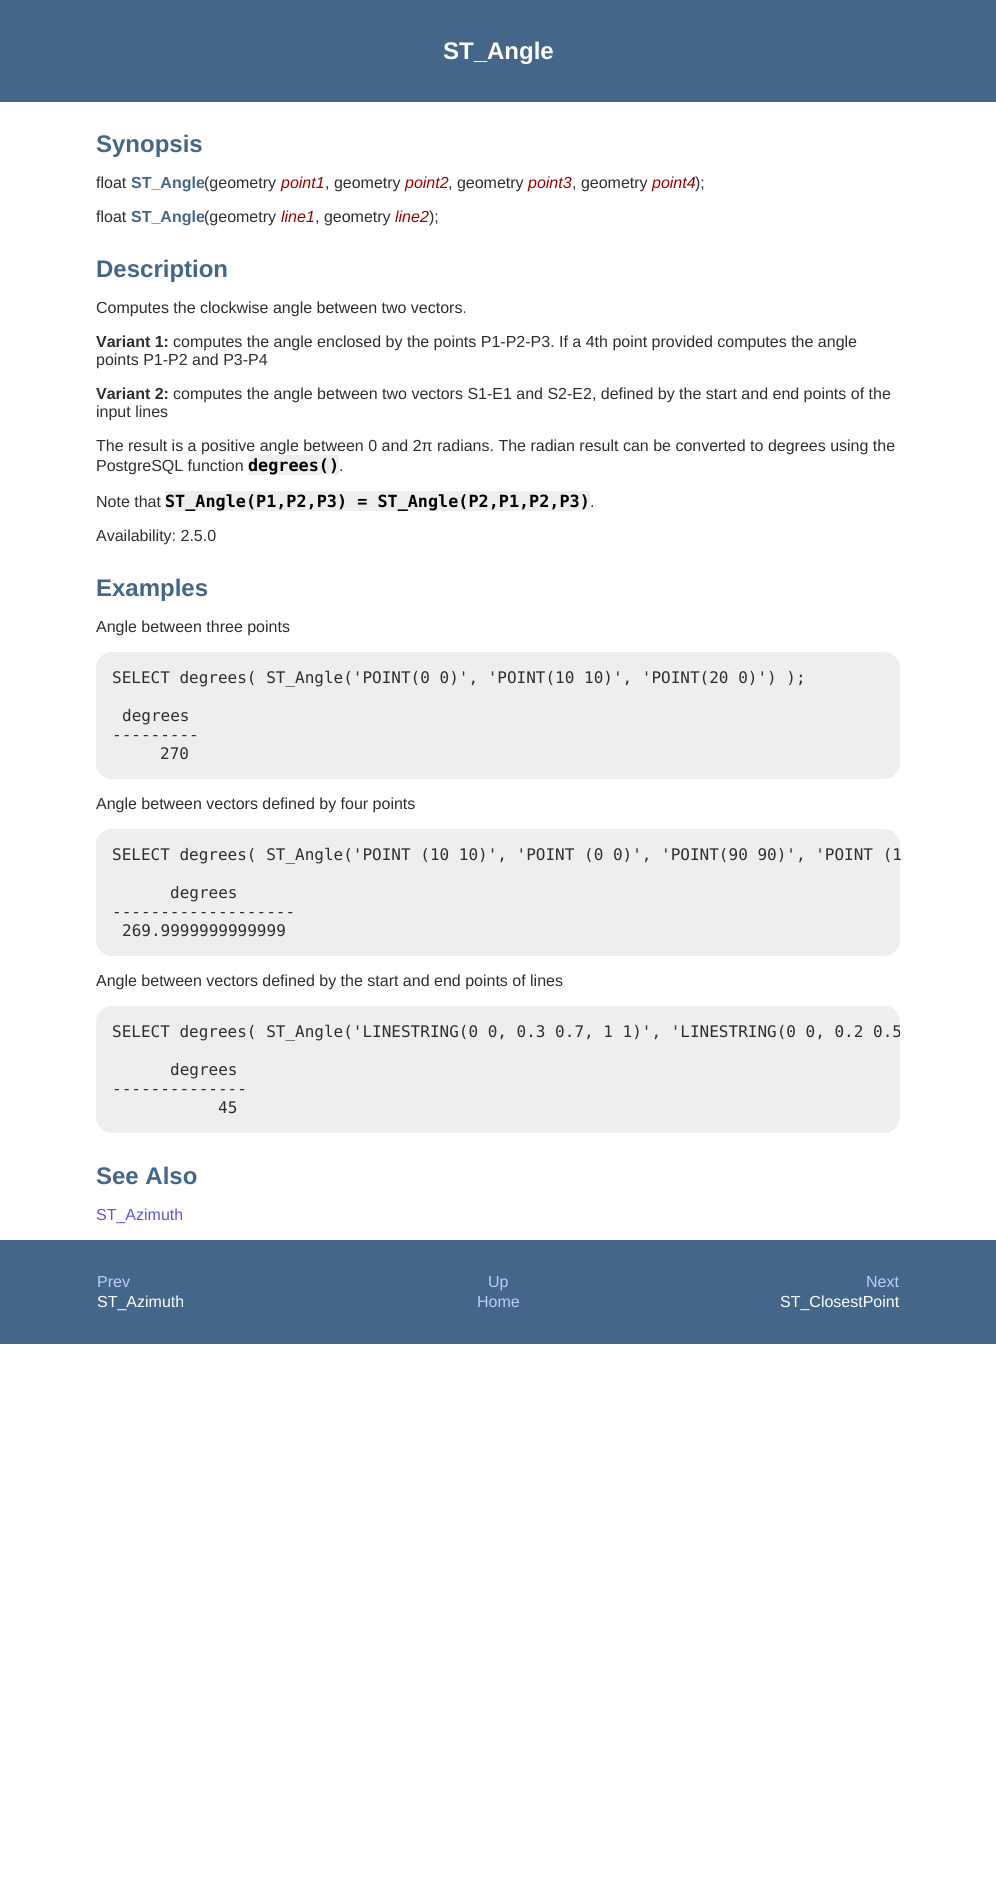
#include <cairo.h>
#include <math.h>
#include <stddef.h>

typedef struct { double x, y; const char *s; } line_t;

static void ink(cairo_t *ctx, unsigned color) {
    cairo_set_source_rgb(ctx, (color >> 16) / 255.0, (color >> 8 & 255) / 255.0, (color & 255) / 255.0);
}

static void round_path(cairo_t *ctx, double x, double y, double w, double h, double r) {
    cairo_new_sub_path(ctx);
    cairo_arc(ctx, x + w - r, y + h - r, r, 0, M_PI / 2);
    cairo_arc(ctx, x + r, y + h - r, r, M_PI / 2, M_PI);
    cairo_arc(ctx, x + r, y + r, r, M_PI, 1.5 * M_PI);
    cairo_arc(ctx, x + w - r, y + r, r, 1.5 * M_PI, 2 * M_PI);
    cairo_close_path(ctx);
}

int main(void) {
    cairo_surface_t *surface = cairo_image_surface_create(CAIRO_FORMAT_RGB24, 996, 1884);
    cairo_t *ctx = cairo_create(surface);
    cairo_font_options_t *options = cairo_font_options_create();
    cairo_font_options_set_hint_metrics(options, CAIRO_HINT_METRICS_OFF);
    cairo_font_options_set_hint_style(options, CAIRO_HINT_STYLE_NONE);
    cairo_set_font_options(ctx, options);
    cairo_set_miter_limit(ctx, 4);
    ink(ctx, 0xFFFFFF);
    cairo_paint(ctx);
    ink(ctx, 0x446688);
    cairo_rectangle(ctx, 0, 0, 996, 102);
    cairo_fill(ctx);
    cairo_select_font_face(ctx, "Liberation Sans", CAIRO_FONT_SLANT_NORMAL, CAIRO_FONT_WEIGHT_BOLD);
    cairo_set_font_size(ctx, 24);
    ink(ctx, 0xFFFFFF);
    cairo_move_to(ctx, 443, 59);
    cairo_show_text(ctx, "ST_Angle");
    ink(ctx, 0x446688);
    cairo_move_to(ctx, 96, 152);
    cairo_show_text(ctx, "Synopsis");
    cairo_select_font_face(ctx, "Liberation Sans", CAIRO_FONT_SLANT_NORMAL, CAIRO_FONT_WEIGHT_NORMAL);
    cairo_set_font_size(ctx, 16);
    ink(ctx, 0x2E2E2E);
    cairo_move_to(ctx, 96, 188);
    cairo_show_text(ctx, "float");
    cairo_select_font_face(ctx, "Liberation Sans", CAIRO_FONT_SLANT_NORMAL, CAIRO_FONT_WEIGHT_BOLD);
    ink(ctx, 0x446688);
    cairo_move_to(ctx, 131, 188);
    cairo_show_text(ctx, "ST_Angle");
    cairo_select_font_face(ctx, "Liberation Sans", CAIRO_FONT_SLANT_NORMAL, CAIRO_FONT_WEIGHT_NORMAL);
    ink(ctx, 0x2E2E2E);
    cairo_move_to(ctx, 204, 188);
    cairo_show_text(ctx, "(geometry");
    cairo_select_font_face(ctx, "Liberation Sans", CAIRO_FONT_SLANT_ITALIC, CAIRO_FONT_WEIGHT_NORMAL);
    ink(ctx, 0x990000);
    cairo_move_to(ctx, 281, 188);
    cairo_show_text(ctx, "point1");
    cairo_select_font_face(ctx, "Liberation Sans", CAIRO_FONT_SLANT_NORMAL, CAIRO_FONT_WEIGHT_NORMAL);
    ink(ctx, 0x2E2E2E);
    cairo_move_to(ctx, 325, 188);
    cairo_show_text(ctx, ", geometry");
    cairo_select_font_face(ctx, "Liberation Sans", CAIRO_FONT_SLANT_ITALIC, CAIRO_FONT_WEIGHT_NORMAL);
    ink(ctx, 0x990000);
    cairo_move_to(ctx, 405, 188);
    cairo_show_text(ctx, "point2");
    cairo_select_font_face(ctx, "Liberation Sans", CAIRO_FONT_SLANT_NORMAL, CAIRO_FONT_WEIGHT_NORMAL);
    ink(ctx, 0x2E2E2E);
    cairo_move_to(ctx, 448, 188);
    cairo_show_text(ctx, ", geometry");
    cairo_select_font_face(ctx, "Liberation Sans", CAIRO_FONT_SLANT_ITALIC, CAIRO_FONT_WEIGHT_NORMAL);
    ink(ctx, 0x990000);
    cairo_move_to(ctx, 528, 188);
    cairo_show_text(ctx, "point3");
    cairo_select_font_face(ctx, "Liberation Sans", CAIRO_FONT_SLANT_NORMAL, CAIRO_FONT_WEIGHT_NORMAL);
    ink(ctx, 0x2E2E2E);
    cairo_move_to(ctx, 572, 188);
    cairo_show_text(ctx, ", geometry");
    cairo_select_font_face(ctx, "Liberation Sans", CAIRO_FONT_SLANT_ITALIC, CAIRO_FONT_WEIGHT_NORMAL);
    ink(ctx, 0x990000);
    cairo_move_to(ctx, 652, 188);
    cairo_show_text(ctx, "point4");
    cairo_select_font_face(ctx, "Liberation Sans", CAIRO_FONT_SLANT_NORMAL, CAIRO_FONT_WEIGHT_NORMAL);
    ink(ctx, 0x2E2E2E);
    cairo_move_to(ctx, 695, 188);
    cairo_show_text(ctx, ");");
    cairo_move_to(ctx, 96, 222);
    cairo_show_text(ctx, "float");
    cairo_select_font_face(ctx, "Liberation Sans", CAIRO_FONT_SLANT_NORMAL, CAIRO_FONT_WEIGHT_BOLD);
    ink(ctx, 0x446688);
    cairo_move_to(ctx, 131, 222);
    cairo_show_text(ctx, "ST_Angle");
    cairo_select_font_face(ctx, "Liberation Sans", CAIRO_FONT_SLANT_NORMAL, CAIRO_FONT_WEIGHT_NORMAL);
    ink(ctx, 0x2E2E2E);
    cairo_move_to(ctx, 204, 222);
    cairo_show_text(ctx, "(geometry");
    cairo_select_font_face(ctx, "Liberation Sans", CAIRO_FONT_SLANT_ITALIC, CAIRO_FONT_WEIGHT_NORMAL);
    ink(ctx, 0x990000);
    cairo_move_to(ctx, 281, 222);
    cairo_show_text(ctx, "line1");
    cairo_select_font_face(ctx, "Liberation Sans", CAIRO_FONT_SLANT_NORMAL, CAIRO_FONT_WEIGHT_NORMAL);
    ink(ctx, 0x2E2E2E);
    cairo_move_to(ctx, 315, 222);
    cairo_show_text(ctx, ", geometry");
    cairo_select_font_face(ctx, "Liberation Sans", CAIRO_FONT_SLANT_ITALIC, CAIRO_FONT_WEIGHT_NORMAL);
    ink(ctx, 0x990000);
    cairo_move_to(ctx, 395, 222);
    cairo_show_text(ctx, "line2");
    cairo_select_font_face(ctx, "Liberation Sans", CAIRO_FONT_SLANT_NORMAL, CAIRO_FONT_WEIGHT_NORMAL);
    ink(ctx, 0x2E2E2E);
    cairo_move_to(ctx, 429, 222);
    cairo_show_text(ctx, ");");
    cairo_select_font_face(ctx, "Liberation Sans", CAIRO_FONT_SLANT_NORMAL, CAIRO_FONT_WEIGHT_BOLD);
    cairo_set_font_size(ctx, 24);
    ink(ctx, 0x446688);
    cairo_move_to(ctx, 96, 277);
    cairo_show_text(ctx, "Description");
    cairo_select_font_face(ctx, "Liberation Sans", CAIRO_FONT_SLANT_NORMAL, CAIRO_FONT_WEIGHT_NORMAL);
    cairo_set_font_size(ctx, 16);
    ink(ctx, 0x2E2E2E);
    cairo_move_to(ctx, 96, 313);
    cairo_show_text(ctx, "Computes the clockwise angle between two vectors.");
    cairo_select_font_face(ctx, "Liberation Sans", CAIRO_FONT_SLANT_NORMAL, CAIRO_FONT_WEIGHT_BOLD);
    cairo_move_to(ctx, 96, 347);
    cairo_show_text(ctx, "Variant 1:");
    cairo_select_font_face(ctx, "Liberation Sans", CAIRO_FONT_SLANT_NORMAL, CAIRO_FONT_WEIGHT_NORMAL);
    cairo_move_to(ctx, 173, 347);
    cairo_show_text(ctx, "computes the angle enclosed by the points P1-P2-P3. If a 4th point provided computes the angle");
    cairo_move_to(ctx, 96, 365);
    cairo_show_text(ctx, "points P1-P2 and P3-P4");
    cairo_select_font_face(ctx, "Liberation Sans", CAIRO_FONT_SLANT_NORMAL, CAIRO_FONT_WEIGHT_BOLD);
    cairo_move_to(ctx, 96, 399);
    cairo_show_text(ctx, "Variant 2:");
    cairo_select_font_face(ctx, "Liberation Sans", CAIRO_FONT_SLANT_NORMAL, CAIRO_FONT_WEIGHT_NORMAL);
    {
        static const line_t items[] = {
            {173, 399, "computes the angle between two vectors S1-E1 and S2-E2, defined by the start and end points of the"},
            {96, 417, "input lines"},
            {96, 451, "The result is a positive angle between 0 and 2π radians. The radian result can be converted to degrees using the"},
            {96, 471, "PostgreSQL function"},
        };
        for (size_t i = 0; i < sizeof items / sizeof *items; i++) {
            cairo_move_to(ctx, items[i].x, items[i].y);
            cairo_show_text(ctx, items[i].s);
        }
    }
    ink(ctx, 0xEEEEEE);
    cairo_rectangle(ctx, 248, 455, 91, 20);
    cairo_fill(ctx);
    cairo_select_font_face(ctx, "DejaVu Sans Mono", CAIRO_FONT_SLANT_NORMAL, CAIRO_FONT_WEIGHT_BOLD);
    cairo_set_font_size(ctx, 16.8);
    ink(ctx, 0x000000);
    cairo_move_to(ctx, 248, 471);
    cairo_show_text(ctx, "degrees()");
    cairo_select_font_face(ctx, "Liberation Sans", CAIRO_FONT_SLANT_NORMAL, CAIRO_FONT_WEIGHT_NORMAL);
    cairo_set_font_size(ctx, 16);
    ink(ctx, 0x2E2E2E);
    cairo_move_to(ctx, 339, 471);
    cairo_show_text(ctx, ".");
    cairo_move_to(ctx, 96, 507);
    cairo_show_text(ctx, "Note that");
    ink(ctx, 0xEEEEEE);
    cairo_rectangle(ctx, 165, 491, 425, 20);
    cairo_fill(ctx);
    cairo_select_font_face(ctx, "DejaVu Sans Mono", CAIRO_FONT_SLANT_NORMAL, CAIRO_FONT_WEIGHT_BOLD);
    cairo_set_font_size(ctx, 16.8);
    ink(ctx, 0x000000);
    cairo_move_to(ctx, 165, 507);
    cairo_show_text(ctx, "ST_Angle(P1,P2,P3) = ST_Angle(P2,P1,P2,P3)");
    cairo_select_font_face(ctx, "Liberation Sans", CAIRO_FONT_SLANT_NORMAL, CAIRO_FONT_WEIGHT_NORMAL);
    cairo_set_font_size(ctx, 16);
    ink(ctx, 0x2E2E2E);
    cairo_move_to(ctx, 590, 507);
    cairo_show_text(ctx, ".");
    cairo_move_to(ctx, 96, 541);
    cairo_show_text(ctx, "Availability: 2.5.0");
    cairo_select_font_face(ctx, "Liberation Sans", CAIRO_FONT_SLANT_NORMAL, CAIRO_FONT_WEIGHT_BOLD);
    cairo_set_font_size(ctx, 24);
    ink(ctx, 0x446688);
    cairo_move_to(ctx, 96, 596);
    cairo_show_text(ctx, "Examples");
    cairo_select_font_face(ctx, "Liberation Sans", CAIRO_FONT_SLANT_NORMAL, CAIRO_FONT_WEIGHT_NORMAL);
    cairo_set_font_size(ctx, 16);
    ink(ctx, 0x2E2E2E);
    cairo_move_to(ctx, 96, 632);
    cairo_show_text(ctx, "Angle between three points");
    ink(ctx, 0xEEEEEE);
    round_path(ctx, 96, 652, 804, 127, 16);
    cairo_fill(ctx);
    cairo_select_font_face(ctx, "DejaVu Sans Mono", CAIRO_FONT_SLANT_NORMAL, CAIRO_FONT_WEIGHT_NORMAL);
    ink(ctx, 0x2E2E2E);
    {
        static const line_t items[] = {
            {112, 683, "SELECT degrees( ST_Angle('POINT(0 0)', 'POINT(10 10)', 'POINT(20 0)') );"},
            {122, 721, "degrees"},
            {112, 740, "---------"},
            {160, 759, "270"},
        };
        for (size_t i = 0; i < sizeof items / sizeof *items; i++) {
            cairo_move_to(ctx, items[i].x, items[i].y);
            cairo_show_text(ctx, items[i].s);
        }
    }
    cairo_select_font_face(ctx, "Liberation Sans", CAIRO_FONT_SLANT_NORMAL, CAIRO_FONT_WEIGHT_NORMAL);
    cairo_move_to(ctx, 96, 809);
    cairo_show_text(ctx, "Angle between vectors defined by four points");
    ink(ctx, 0xEEEEEE);
    round_path(ctx, 96, 829, 804, 127, 16);
    cairo_fill(ctx);
    cairo_select_font_face(ctx, "DejaVu Sans Mono", CAIRO_FONT_SLANT_NORMAL, CAIRO_FONT_WEIGHT_NORMAL);
    ink(ctx, 0x2E2E2E);
    {
        static const line_t items[] = {
            {112, 860, "SELECT degrees( ST_Angle('POINT (10 10)', 'POINT (0 0)', 'POINT(90 90)', 'POINT (1"},
            {170, 898, "degrees"},
            {112, 917, "-------------------"},
            {122, 936, "269.9999999999999"},
        };
        for (size_t i = 0; i < sizeof items / sizeof *items; i++) {
            cairo_move_to(ctx, items[i].x, items[i].y);
            cairo_show_text(ctx, items[i].s);
        }
    }
    cairo_select_font_face(ctx, "Liberation Sans", CAIRO_FONT_SLANT_NORMAL, CAIRO_FONT_WEIGHT_NORMAL);
    cairo_move_to(ctx, 96, 986);
    cairo_show_text(ctx, "Angle between vectors defined by the start and end points of lines");
    ink(ctx, 0xEEEEEE);
    round_path(ctx, 96, 1006, 804, 127, 16);
    cairo_fill(ctx);
    cairo_save(ctx);
    round_path(ctx, 96, 1006, 804, 127, 16);
    cairo_clip(ctx);
    cairo_select_font_face(ctx, "DejaVu Sans Mono", CAIRO_FONT_SLANT_NORMAL, CAIRO_FONT_WEIGHT_NORMAL);
    ink(ctx, 0x2E2E2E);
    cairo_move_to(ctx, 112, 1037);
    cairo_show_text(ctx, "SELECT degrees( ST_Angle('LINESTRING(0 0, 0.3 0.7, 1 1)', 'LINESTRING(0 0, 0.2 0.5");
    cairo_restore(ctx);
    cairo_select_font_face(ctx, "DejaVu Sans Mono", CAIRO_FONT_SLANT_NORMAL, CAIRO_FONT_WEIGHT_NORMAL);
    ink(ctx, 0x2E2E2E);
    {
        static const line_t items[] = {
            {170, 1075, "degrees"},
            {112, 1094, "--------------"},
            {218, 1113, "45"},
        };
        for (size_t i = 0; i < sizeof items / sizeof *items; i++) {
            cairo_move_to(ctx, items[i].x, items[i].y);
            cairo_show_text(ctx, items[i].s);
        }
    }
    cairo_select_font_face(ctx, "Liberation Sans", CAIRO_FONT_SLANT_NORMAL, CAIRO_FONT_WEIGHT_BOLD);
    cairo_set_font_size(ctx, 24);
    ink(ctx, 0x446688);
    cairo_move_to(ctx, 96, 1184);
    cairo_show_text(ctx, "See Also");
    cairo_select_font_face(ctx, "Liberation Sans", CAIRO_FONT_SLANT_NORMAL, CAIRO_FONT_WEIGHT_NORMAL);
    cairo_set_font_size(ctx, 16);
    ink(ctx, 0x5555DD);
    cairo_move_to(ctx, 96, 1220);
    cairo_show_text(ctx, "ST_Azimuth");
    ink(ctx, 0x446688);
    cairo_rectangle(ctx, 0, 1240, 996, 104);
    cairo_fill(ctx);
    ink(ctx, 0xBBCCFF);
    {
        static const line_t items[] = {
            {97, 1287, "Prev"},
            {488, 1287, "Up"},
            {866, 1287, "Next"},
        };
        for (size_t i = 0; i < sizeof items / sizeof *items; i++) {
            cairo_move_to(ctx, items[i].x, items[i].y);
            cairo_show_text(ctx, items[i].s);
        }
    }
    ink(ctx, 0xFFFFFF);
    cairo_move_to(ctx, 97, 1307);
    cairo_show_text(ctx, "ST_Azimuth");
    ink(ctx, 0xBBCCFF);
    cairo_move_to(ctx, 477, 1307);
    cairo_show_text(ctx, "Home");
    ink(ctx, 0xFFFFFF);
    cairo_move_to(ctx, 780, 1307);
    cairo_show_text(ctx, "ST_ClosestPoint");
    cairo_surface_write_to_png(surface, "image.png");
    cairo_font_options_destroy(options);
    cairo_destroy(ctx);
    cairo_surface_destroy(surface);
    return 0;
}
